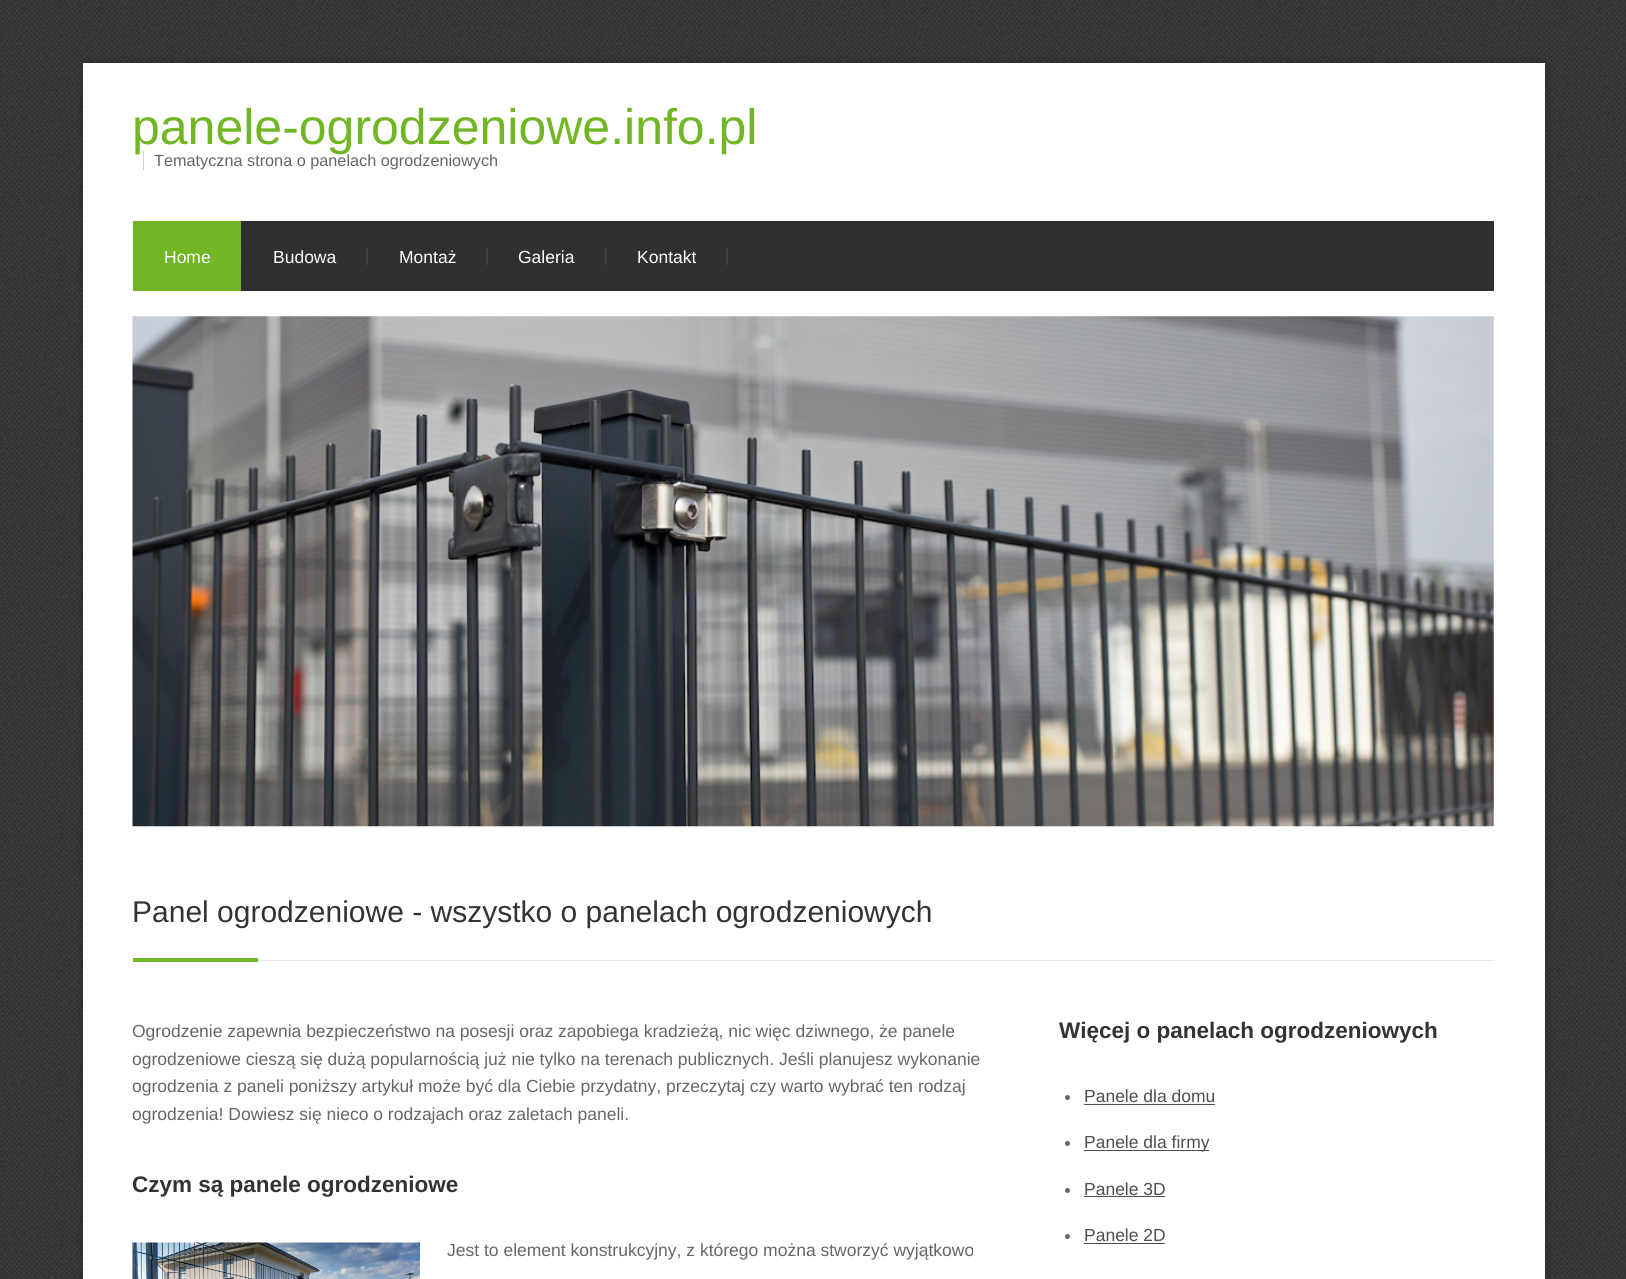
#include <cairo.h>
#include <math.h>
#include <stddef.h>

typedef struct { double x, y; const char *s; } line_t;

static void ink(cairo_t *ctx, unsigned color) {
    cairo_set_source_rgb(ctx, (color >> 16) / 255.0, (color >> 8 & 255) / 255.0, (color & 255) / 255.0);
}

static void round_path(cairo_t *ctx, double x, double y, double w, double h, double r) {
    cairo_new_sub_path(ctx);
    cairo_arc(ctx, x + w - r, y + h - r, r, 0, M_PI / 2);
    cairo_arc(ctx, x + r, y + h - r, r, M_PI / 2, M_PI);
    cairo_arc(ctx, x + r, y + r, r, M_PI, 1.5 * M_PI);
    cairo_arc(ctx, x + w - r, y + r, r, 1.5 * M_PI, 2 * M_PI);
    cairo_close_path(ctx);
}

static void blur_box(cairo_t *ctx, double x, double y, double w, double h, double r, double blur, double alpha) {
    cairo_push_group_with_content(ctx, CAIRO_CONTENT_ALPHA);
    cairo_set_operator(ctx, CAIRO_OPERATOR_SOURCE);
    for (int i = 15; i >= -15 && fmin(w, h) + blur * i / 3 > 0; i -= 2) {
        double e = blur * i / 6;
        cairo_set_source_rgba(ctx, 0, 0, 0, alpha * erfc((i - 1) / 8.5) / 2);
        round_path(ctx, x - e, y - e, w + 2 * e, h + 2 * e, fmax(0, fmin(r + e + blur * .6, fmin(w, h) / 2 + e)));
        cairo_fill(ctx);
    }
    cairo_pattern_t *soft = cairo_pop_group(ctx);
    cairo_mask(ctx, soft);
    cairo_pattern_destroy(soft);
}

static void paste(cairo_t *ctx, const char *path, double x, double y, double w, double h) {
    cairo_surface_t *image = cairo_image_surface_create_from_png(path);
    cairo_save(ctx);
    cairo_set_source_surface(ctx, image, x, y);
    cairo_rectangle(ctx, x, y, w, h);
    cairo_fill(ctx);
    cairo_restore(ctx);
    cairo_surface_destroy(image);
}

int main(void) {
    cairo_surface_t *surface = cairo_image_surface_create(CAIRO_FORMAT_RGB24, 1626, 1279);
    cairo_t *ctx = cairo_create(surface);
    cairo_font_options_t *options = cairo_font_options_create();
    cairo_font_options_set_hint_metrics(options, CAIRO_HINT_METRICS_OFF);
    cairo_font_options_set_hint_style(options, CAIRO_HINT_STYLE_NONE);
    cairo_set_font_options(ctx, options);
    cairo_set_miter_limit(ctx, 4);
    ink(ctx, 0xFFFFFF);
    cairo_paint(ctx);
    paste(ctx, "media/1.png", 0, 0, 1626, 1279);
    ink(ctx, 0x000000);
    blur_box(ctx, 83, 63, 1462, 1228, 0, 4, 0.2);
    ink(ctx, 0xFFFFFF);
    cairo_rectangle(ctx, 83, 63, 1462, 1216);
    cairo_fill(ctx);
    cairo_select_font_face(ctx, "Liberation Sans", CAIRO_FONT_SLANT_NORMAL, CAIRO_FONT_WEIGHT_NORMAL);
    cairo_set_font_size(ctx, 50);
    ink(ctx, 0x72B626);
    cairo_move_to(ctx, 132, 144);
    cairo_show_text(ctx, "panele-ogrodzeniowe.info.pl");
    cairo_set_font_size(ctx, 16.25);
    ink(ctx, 0x666666);
    cairo_move_to(ctx, 154, 166);
    cairo_show_text(ctx, "Tematyczna strona o panelach ogrodzeniowych");
    ink(ctx, 0xCFCFCF);
    cairo_rectangle(ctx, 143, 151, 1, 19);
    cairo_fill(ctx);
    ink(ctx, 0x303030);
    cairo_rectangle(ctx, 241, 221, 1253, 70);
    cairo_fill(ctx);
    paste(ctx, "media/2.png", 241, 247, 1, 18);
    ink(ctx, 0x72B626);
    cairo_rectangle(ctx, 133, 221, 108, 70);
    cairo_fill(ctx);
    cairo_set_font_size(ctx, 17.5);
    ink(ctx, 0xFFFFFF);
    cairo_move_to(ctx, 164, 263);
    cairo_show_text(ctx, "Home");
    paste(ctx, "media/3.png", 366, 247, 2, 18);
    cairo_move_to(ctx, 273, 263);
    cairo_show_text(ctx, "Budowa");
    paste(ctx, "media/3.png", 486, 247, 2, 18);
    cairo_move_to(ctx, 399, 263);
    cairo_show_text(ctx, "Montaż");
    paste(ctx, "media/4.png", 605, 247, 2, 18);
    cairo_move_to(ctx, 518, 263);
    cairo_show_text(ctx, "Galeria");
    paste(ctx, "media/3.png", 726, 247, 2, 18);
    cairo_move_to(ctx, 637, 263);
    cairo_show_text(ctx, "Kontakt");
    paste(ctx, "media/5.png", 132, 316, 1362, 511);
    ink(ctx, 0xE9E9E9);
    cairo_rectangle(ctx, 258, 960, 1236, 1);
    cairo_fill(ctx);
    cairo_set_font_size(ctx, 30);
    ink(ctx, 0x333333);
    cairo_move_to(ctx, 132, 922);
    cairo_show_text(ctx, "Panel ogrodzeniowe - wszystko o panelach ogrodzeniowych");
    ink(ctx, 0x72B626);
    cairo_rectangle(ctx, 133, 958, 125, 4);
    cairo_fill(ctx);
    cairo_set_font_size(ctx, 17.5);
    ink(ctx, 0x666666);
    {
        static const line_t items[] = {
            {132, 1037, "Ogrodzenie zapewnia bezpieczeństwo na posesji oraz zapobiega kradzieżą, nic więc dziwnego, że panele"},
            {132, 1065, "ogrodzeniowe cieszą się dużą popularnością już nie tylko na terenach publicznych. Jeśli planujesz wykonanie"},
            {132, 1092, "ogrodzenia z paneli poniższy artykuł może być dla Ciebie przydatny, przeczytaj czy warto wybrać ten rodzaj"},
            {132, 1120, "ogrodzenia! Dowiesz się nieco o rodzajach oraz zaletach paneli."},
        };
        for (size_t i = 0; i < sizeof items / sizeof *items; i++) {
            cairo_move_to(ctx, items[i].x, items[i].y);
            cairo_show_text(ctx, items[i].s);
        }
    }
    cairo_select_font_face(ctx, "Liberation Sans", CAIRO_FONT_SLANT_NORMAL, CAIRO_FONT_WEIGHT_BOLD);
    cairo_set_font_size(ctx, 22.5);
    ink(ctx, 0x333333);
    cairo_move_to(ctx, 132, 1192);
    cairo_show_text(ctx, "Czym są panele ogrodzeniowe");
    paste(ctx, "media/6.png", 132, 1242, 288, 37);
    cairo_select_font_face(ctx, "Liberation Sans", CAIRO_FONT_SLANT_NORMAL, CAIRO_FONT_WEIGHT_NORMAL);
    cairo_set_font_size(ctx, 17.5);
    ink(ctx, 0x666666);
    cairo_move_to(ctx, 447, 1256);
    cairo_show_text(ctx, "Jest to element konstrukcyjny, z którego można stworzyć wyjątkowo");
    cairo_select_font_face(ctx, "Liberation Sans", CAIRO_FONT_SLANT_NORMAL, CAIRO_FONT_WEIGHT_BOLD);
    cairo_set_font_size(ctx, 22.5);
    ink(ctx, 0x333333);
    cairo_move_to(ctx, 1059, 1038);
    cairo_show_text(ctx, "Więcej o panelach ogrodzeniowych");
    ink(ctx, 0x666666);
    cairo_new_path(ctx);
    cairo_arc(ctx, 1067.5, 1097.5, 2.5, 0, 2 * M_PI);
    cairo_fill(ctx);
    cairo_select_font_face(ctx, "Liberation Sans", CAIRO_FONT_SLANT_NORMAL, CAIRO_FONT_WEIGHT_NORMAL);
    cairo_set_font_size(ctx, 17.5);
    ink(ctx, 0x4E4E4E);
    cairo_move_to(ctx, 1084, 1102);
    cairo_show_text(ctx, "Panele dla domu");
    cairo_rectangle(ctx, 1084, 1104, 131, 1);
    cairo_fill(ctx);
    ink(ctx, 0x666666);
    cairo_arc(ctx, 1067.5, 1143.5, 2.5, 0, 2 * M_PI);
    cairo_fill(ctx);
    ink(ctx, 0x4E4E4E);
    cairo_rectangle(ctx, 1084, 1150, 125, 1);
    cairo_fill(ctx);
    cairo_move_to(ctx, 1084, 1148);
    cairo_show_text(ctx, "Panele dla firmy");
    ink(ctx, 0x666666);
    cairo_new_path(ctx);
    cairo_arc(ctx, 1067.5, 1190.5, 2.5, 0, 2 * M_PI);
    cairo_fill(ctx);
    ink(ctx, 0x4E4E4E);
    cairo_move_to(ctx, 1084, 1195);
    cairo_show_text(ctx, "Panele 3D");
    cairo_rectangle(ctx, 1084, 1196, 81, 1);
    cairo_fill(ctx);
    ink(ctx, 0x666666);
    cairo_arc(ctx, 1067.5, 1236.5, 2.5, 0, 2 * M_PI);
    cairo_fill(ctx);
    ink(ctx, 0x4E4E4E);
    cairo_move_to(ctx, 1084, 1241);
    cairo_show_text(ctx, "Panele 2D");
    cairo_rectangle(ctx, 1084, 1243, 81, 1);
    cairo_fill(ctx);
    cairo_surface_write_to_png(surface, "image.png");
    cairo_font_options_destroy(options);
    cairo_destroy(ctx);
    cairo_surface_destroy(surface);
    return 0;
}
